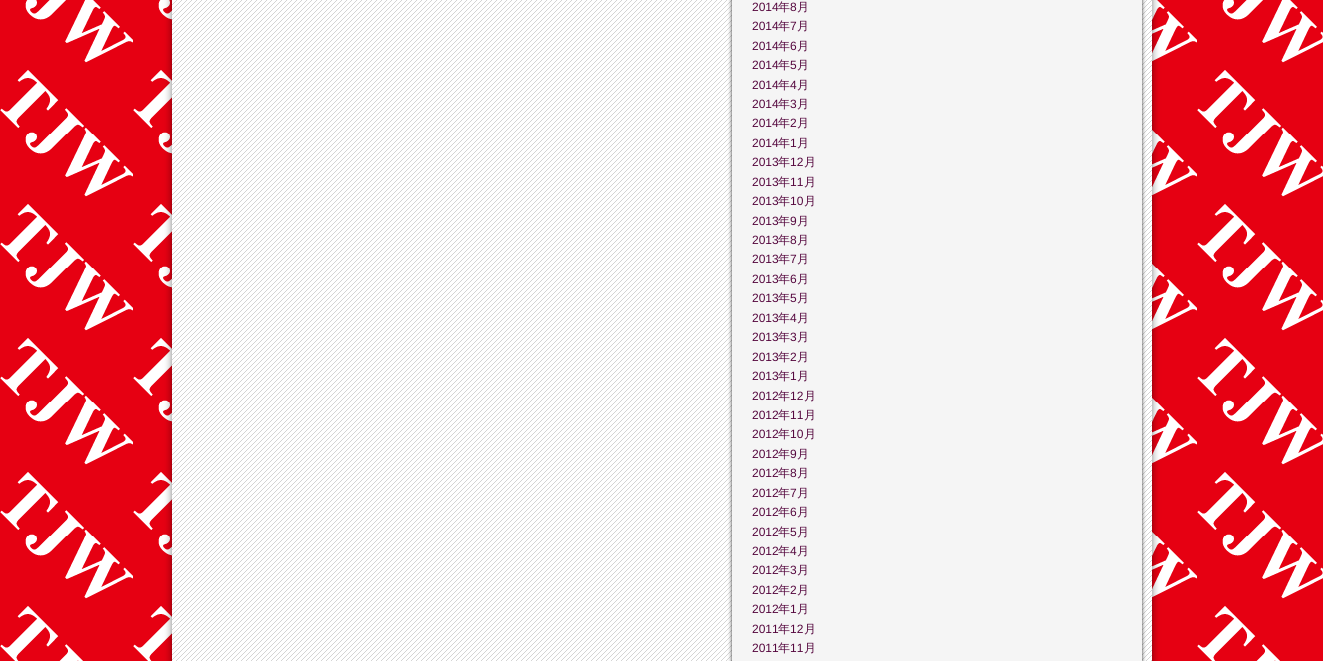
#include <cairo.h>
#include <math.h>
#include <stddef.h>


static void ink(cairo_t *ctx, unsigned color) {
    cairo_set_source_rgb(ctx, (color >> 16) / 255.0, (color >> 8 & 255) / 255.0, (color & 255) / 255.0);
}

static void round_path(cairo_t *ctx, double x, double y, double w, double h, double r) {
    cairo_new_sub_path(ctx);
    cairo_arc(ctx, x + w - r, y + h - r, r, 0, M_PI / 2);
    cairo_arc(ctx, x + r, y + h - r, r, M_PI / 2, M_PI);
    cairo_arc(ctx, x + r, y + r, r, M_PI, 1.5 * M_PI);
    cairo_arc(ctx, x + w - r, y + r, r, 1.5 * M_PI, 2 * M_PI);
    cairo_close_path(ctx);
}

static void blur_box(cairo_t *ctx, double x, double y, double w, double h, double r, double blur, double alpha) {
    cairo_push_group_with_content(ctx, CAIRO_CONTENT_ALPHA);
    cairo_set_operator(ctx, CAIRO_OPERATOR_SOURCE);
    for (int i = 15; i >= -15 && fmin(w, h) + blur * i / 3 > 0; i -= 2) {
        double e = blur * i / 6;
        cairo_set_source_rgba(ctx, 0, 0, 0, alpha * erfc((i - 1) / 8.5) / 2);
        round_path(ctx, x - e, y - e, w + 2 * e, h + 2 * e, fmax(0, fmin(r + e + blur * .6, fmin(w, h) / 2 + e)));
        cairo_fill(ctx);
    }
    cairo_pattern_t *soft = cairo_pop_group(ctx);
    cairo_mask(ctx, soft);
    cairo_pattern_destroy(soft);
}

static void paste(cairo_t *ctx, const char *path, double x, double y, double w, double h) {
    cairo_surface_t *image = cairo_image_surface_create_from_png(path);
    cairo_save(ctx);
    cairo_set_source_surface(ctx, image, x, y);
    cairo_rectangle(ctx, x, y, w, h);
    cairo_fill(ctx);
    cairo_restore(ctx);
    cairo_surface_destroy(image);
}

int main(void) {
    cairo_surface_t *surface = cairo_image_surface_create(CAIRO_FORMAT_RGB24, 1323, 661);
    cairo_t *ctx = cairo_create(surface);
    cairo_font_options_t *options = cairo_font_options_create();
    cairo_font_options_set_hint_metrics(options, CAIRO_HINT_METRICS_OFF);
    cairo_font_options_set_hint_style(options, CAIRO_HINT_STYLE_NONE);
    cairo_set_font_options(ctx, options);
    cairo_set_miter_limit(ctx, 4);
    ink(ctx, 0xFFFFFF);
    cairo_paint(ctx);
    paste(ctx, "media/1.png", 0, 0, 1323, 661);
    ink(ctx, 0x000000);
    blur_box(ctx, 172, -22, 980, 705, 10, 4, 0.5);
    paste(ctx, "media/2.png", 172, 0, 980, 661);
    ink(ctx, 0x333333);
    blur_box(ctx, 732, -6, 410, 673, 0, 2, 1);
    ink(ctx, 0xF5F5F5);
    cairo_rectangle(ctx, 732, 0, 410, 661);
    cairo_fill(ctx);
    cairo_select_font_face(ctx, "Liberation Sans", CAIRO_FONT_SLANT_NORMAL, CAIRO_FONT_WEIGHT_NORMAL);
    cairo_set_font_size(ctx, 12);
    ink(ctx, 0x55073E);
    cairo_move_to(ctx, 752, 11);
    cairo_show_text(ctx, "2014");
    cairo_select_font_face(ctx, "WenQuanYi Zen Hei Medium", CAIRO_FONT_SLANT_NORMAL, CAIRO_FONT_WEIGHT_NORMAL);
    cairo_move_to(ctx, 778, 11);
    cairo_show_text(ctx, "年");
    cairo_select_font_face(ctx, "Liberation Sans", CAIRO_FONT_SLANT_NORMAL, CAIRO_FONT_WEIGHT_NORMAL);
    cairo_move_to(ctx, 790, 11);
    cairo_show_text(ctx, "8");
    cairo_select_font_face(ctx, "WenQuanYi Zen Hei Medium", CAIRO_FONT_SLANT_NORMAL, CAIRO_FONT_WEIGHT_NORMAL);
    cairo_move_to(ctx, 797, 11);
    cairo_show_text(ctx, "月");
    cairo_select_font_face(ctx, "Liberation Sans", CAIRO_FONT_SLANT_NORMAL, CAIRO_FONT_WEIGHT_NORMAL);
    cairo_move_to(ctx, 752, 30);
    cairo_show_text(ctx, "2014");
    cairo_select_font_face(ctx, "WenQuanYi Zen Hei Medium", CAIRO_FONT_SLANT_NORMAL, CAIRO_FONT_WEIGHT_NORMAL);
    cairo_move_to(ctx, 778, 30);
    cairo_show_text(ctx, "年");
    cairo_select_font_face(ctx, "Liberation Sans", CAIRO_FONT_SLANT_NORMAL, CAIRO_FONT_WEIGHT_NORMAL);
    cairo_move_to(ctx, 790, 30);
    cairo_show_text(ctx, "7");
    cairo_select_font_face(ctx, "WenQuanYi Zen Hei Medium", CAIRO_FONT_SLANT_NORMAL, CAIRO_FONT_WEIGHT_NORMAL);
    cairo_move_to(ctx, 797, 30);
    cairo_show_text(ctx, "月");
    cairo_select_font_face(ctx, "Liberation Sans", CAIRO_FONT_SLANT_NORMAL, CAIRO_FONT_WEIGHT_NORMAL);
    cairo_move_to(ctx, 752, 50);
    cairo_show_text(ctx, "2014");
    cairo_select_font_face(ctx, "WenQuanYi Zen Hei Medium", CAIRO_FONT_SLANT_NORMAL, CAIRO_FONT_WEIGHT_NORMAL);
    cairo_move_to(ctx, 778, 50);
    cairo_show_text(ctx, "年");
    cairo_select_font_face(ctx, "Liberation Sans", CAIRO_FONT_SLANT_NORMAL, CAIRO_FONT_WEIGHT_NORMAL);
    cairo_move_to(ctx, 790, 50);
    cairo_show_text(ctx, "6");
    cairo_select_font_face(ctx, "WenQuanYi Zen Hei Medium", CAIRO_FONT_SLANT_NORMAL, CAIRO_FONT_WEIGHT_NORMAL);
    cairo_move_to(ctx, 797, 50);
    cairo_show_text(ctx, "月");
    cairo_select_font_face(ctx, "Liberation Sans", CAIRO_FONT_SLANT_NORMAL, CAIRO_FONT_WEIGHT_NORMAL);
    cairo_move_to(ctx, 752, 69);
    cairo_show_text(ctx, "2014");
    cairo_select_font_face(ctx, "WenQuanYi Zen Hei Medium", CAIRO_FONT_SLANT_NORMAL, CAIRO_FONT_WEIGHT_NORMAL);
    cairo_move_to(ctx, 778, 69);
    cairo_show_text(ctx, "年");
    cairo_select_font_face(ctx, "Liberation Sans", CAIRO_FONT_SLANT_NORMAL, CAIRO_FONT_WEIGHT_NORMAL);
    cairo_move_to(ctx, 790, 69);
    cairo_show_text(ctx, "5");
    cairo_select_font_face(ctx, "WenQuanYi Zen Hei Medium", CAIRO_FONT_SLANT_NORMAL, CAIRO_FONT_WEIGHT_NORMAL);
    cairo_move_to(ctx, 797, 69);
    cairo_show_text(ctx, "月");
    cairo_select_font_face(ctx, "Liberation Sans", CAIRO_FONT_SLANT_NORMAL, CAIRO_FONT_WEIGHT_NORMAL);
    cairo_move_to(ctx, 752, 89);
    cairo_show_text(ctx, "2014");
    cairo_select_font_face(ctx, "WenQuanYi Zen Hei Medium", CAIRO_FONT_SLANT_NORMAL, CAIRO_FONT_WEIGHT_NORMAL);
    cairo_move_to(ctx, 778, 89);
    cairo_show_text(ctx, "年");
    cairo_select_font_face(ctx, "Liberation Sans", CAIRO_FONT_SLANT_NORMAL, CAIRO_FONT_WEIGHT_NORMAL);
    cairo_move_to(ctx, 790, 89);
    cairo_show_text(ctx, "4");
    cairo_select_font_face(ctx, "WenQuanYi Zen Hei Medium", CAIRO_FONT_SLANT_NORMAL, CAIRO_FONT_WEIGHT_NORMAL);
    cairo_move_to(ctx, 797, 89);
    cairo_show_text(ctx, "月");
    cairo_select_font_face(ctx, "Liberation Sans", CAIRO_FONT_SLANT_NORMAL, CAIRO_FONT_WEIGHT_NORMAL);
    cairo_move_to(ctx, 752, 108);
    cairo_show_text(ctx, "2014");
    cairo_select_font_face(ctx, "WenQuanYi Zen Hei Medium", CAIRO_FONT_SLANT_NORMAL, CAIRO_FONT_WEIGHT_NORMAL);
    cairo_move_to(ctx, 778, 108);
    cairo_show_text(ctx, "年");
    cairo_select_font_face(ctx, "Liberation Sans", CAIRO_FONT_SLANT_NORMAL, CAIRO_FONT_WEIGHT_NORMAL);
    cairo_move_to(ctx, 790, 108);
    cairo_show_text(ctx, "3");
    cairo_select_font_face(ctx, "WenQuanYi Zen Hei Medium", CAIRO_FONT_SLANT_NORMAL, CAIRO_FONT_WEIGHT_NORMAL);
    cairo_move_to(ctx, 797, 108);
    cairo_show_text(ctx, "月");
    cairo_select_font_face(ctx, "Liberation Sans", CAIRO_FONT_SLANT_NORMAL, CAIRO_FONT_WEIGHT_NORMAL);
    cairo_move_to(ctx, 752, 127);
    cairo_show_text(ctx, "2014");
    cairo_select_font_face(ctx, "WenQuanYi Zen Hei Medium", CAIRO_FONT_SLANT_NORMAL, CAIRO_FONT_WEIGHT_NORMAL);
    cairo_move_to(ctx, 778, 127);
    cairo_show_text(ctx, "年");
    cairo_select_font_face(ctx, "Liberation Sans", CAIRO_FONT_SLANT_NORMAL, CAIRO_FONT_WEIGHT_NORMAL);
    cairo_move_to(ctx, 790, 127);
    cairo_show_text(ctx, "2");
    cairo_select_font_face(ctx, "WenQuanYi Zen Hei Medium", CAIRO_FONT_SLANT_NORMAL, CAIRO_FONT_WEIGHT_NORMAL);
    cairo_move_to(ctx, 797, 127);
    cairo_show_text(ctx, "月");
    cairo_select_font_face(ctx, "Liberation Sans", CAIRO_FONT_SLANT_NORMAL, CAIRO_FONT_WEIGHT_NORMAL);
    cairo_move_to(ctx, 752, 147);
    cairo_show_text(ctx, "2014");
    cairo_select_font_face(ctx, "WenQuanYi Zen Hei Medium", CAIRO_FONT_SLANT_NORMAL, CAIRO_FONT_WEIGHT_NORMAL);
    cairo_move_to(ctx, 778, 147);
    cairo_show_text(ctx, "年");
    cairo_select_font_face(ctx, "Liberation Sans", CAIRO_FONT_SLANT_NORMAL, CAIRO_FONT_WEIGHT_NORMAL);
    cairo_move_to(ctx, 790, 147);
    cairo_show_text(ctx, "1");
    cairo_select_font_face(ctx, "WenQuanYi Zen Hei Medium", CAIRO_FONT_SLANT_NORMAL, CAIRO_FONT_WEIGHT_NORMAL);
    cairo_move_to(ctx, 797, 147);
    cairo_show_text(ctx, "月");
    cairo_select_font_face(ctx, "Liberation Sans", CAIRO_FONT_SLANT_NORMAL, CAIRO_FONT_WEIGHT_NORMAL);
    cairo_move_to(ctx, 752, 166);
    cairo_show_text(ctx, "2013");
    cairo_select_font_face(ctx, "WenQuanYi Zen Hei Medium", CAIRO_FONT_SLANT_NORMAL, CAIRO_FONT_WEIGHT_NORMAL);
    cairo_move_to(ctx, 778, 166);
    cairo_show_text(ctx, "年");
    cairo_select_font_face(ctx, "Liberation Sans", CAIRO_FONT_SLANT_NORMAL, CAIRO_FONT_WEIGHT_NORMAL);
    cairo_move_to(ctx, 790, 166);
    cairo_show_text(ctx, "12");
    cairo_select_font_face(ctx, "WenQuanYi Zen Hei Medium", CAIRO_FONT_SLANT_NORMAL, CAIRO_FONT_WEIGHT_NORMAL);
    cairo_move_to(ctx, 804, 166);
    cairo_show_text(ctx, "月");
    cairo_select_font_face(ctx, "Liberation Sans", CAIRO_FONT_SLANT_NORMAL, CAIRO_FONT_WEIGHT_NORMAL);
    cairo_move_to(ctx, 752, 186);
    cairo_show_text(ctx, "2013");
    cairo_select_font_face(ctx, "WenQuanYi Zen Hei Medium", CAIRO_FONT_SLANT_NORMAL, CAIRO_FONT_WEIGHT_NORMAL);
    cairo_move_to(ctx, 778, 186);
    cairo_show_text(ctx, "年");
    cairo_select_font_face(ctx, "Liberation Sans", CAIRO_FONT_SLANT_NORMAL, CAIRO_FONT_WEIGHT_NORMAL);
    cairo_move_to(ctx, 790, 186);
    cairo_show_text(ctx, "11");
    cairo_select_font_face(ctx, "WenQuanYi Zen Hei Medium", CAIRO_FONT_SLANT_NORMAL, CAIRO_FONT_WEIGHT_NORMAL);
    cairo_move_to(ctx, 804, 186);
    cairo_show_text(ctx, "月");
    cairo_select_font_face(ctx, "Liberation Sans", CAIRO_FONT_SLANT_NORMAL, CAIRO_FONT_WEIGHT_NORMAL);
    cairo_move_to(ctx, 752, 205);
    cairo_show_text(ctx, "2013");
    cairo_select_font_face(ctx, "WenQuanYi Zen Hei Medium", CAIRO_FONT_SLANT_NORMAL, CAIRO_FONT_WEIGHT_NORMAL);
    cairo_move_to(ctx, 778, 205);
    cairo_show_text(ctx, "年");
    cairo_select_font_face(ctx, "Liberation Sans", CAIRO_FONT_SLANT_NORMAL, CAIRO_FONT_WEIGHT_NORMAL);
    cairo_move_to(ctx, 790, 205);
    cairo_show_text(ctx, "10");
    cairo_select_font_face(ctx, "WenQuanYi Zen Hei Medium", CAIRO_FONT_SLANT_NORMAL, CAIRO_FONT_WEIGHT_NORMAL);
    cairo_move_to(ctx, 804, 205);
    cairo_show_text(ctx, "月");
    cairo_select_font_face(ctx, "Liberation Sans", CAIRO_FONT_SLANT_NORMAL, CAIRO_FONT_WEIGHT_NORMAL);
    cairo_move_to(ctx, 752, 225);
    cairo_show_text(ctx, "2013");
    cairo_select_font_face(ctx, "WenQuanYi Zen Hei Medium", CAIRO_FONT_SLANT_NORMAL, CAIRO_FONT_WEIGHT_NORMAL);
    cairo_move_to(ctx, 778, 225);
    cairo_show_text(ctx, "年");
    cairo_select_font_face(ctx, "Liberation Sans", CAIRO_FONT_SLANT_NORMAL, CAIRO_FONT_WEIGHT_NORMAL);
    cairo_move_to(ctx, 790, 225);
    cairo_show_text(ctx, "9");
    cairo_select_font_face(ctx, "WenQuanYi Zen Hei Medium", CAIRO_FONT_SLANT_NORMAL, CAIRO_FONT_WEIGHT_NORMAL);
    cairo_move_to(ctx, 797, 225);
    cairo_show_text(ctx, "月");
    cairo_select_font_face(ctx, "Liberation Sans", CAIRO_FONT_SLANT_NORMAL, CAIRO_FONT_WEIGHT_NORMAL);
    cairo_move_to(ctx, 752, 244);
    cairo_show_text(ctx, "2013");
    cairo_select_font_face(ctx, "WenQuanYi Zen Hei Medium", CAIRO_FONT_SLANT_NORMAL, CAIRO_FONT_WEIGHT_NORMAL);
    cairo_move_to(ctx, 778, 244);
    cairo_show_text(ctx, "年");
    cairo_select_font_face(ctx, "Liberation Sans", CAIRO_FONT_SLANT_NORMAL, CAIRO_FONT_WEIGHT_NORMAL);
    cairo_move_to(ctx, 790, 244);
    cairo_show_text(ctx, "8");
    cairo_select_font_face(ctx, "WenQuanYi Zen Hei Medium", CAIRO_FONT_SLANT_NORMAL, CAIRO_FONT_WEIGHT_NORMAL);
    cairo_move_to(ctx, 797, 244);
    cairo_show_text(ctx, "月");
    cairo_select_font_face(ctx, "Liberation Sans", CAIRO_FONT_SLANT_NORMAL, CAIRO_FONT_WEIGHT_NORMAL);
    cairo_move_to(ctx, 752, 263);
    cairo_show_text(ctx, "2013");
    cairo_select_font_face(ctx, "WenQuanYi Zen Hei Medium", CAIRO_FONT_SLANT_NORMAL, CAIRO_FONT_WEIGHT_NORMAL);
    cairo_move_to(ctx, 778, 263);
    cairo_show_text(ctx, "年");
    cairo_select_font_face(ctx, "Liberation Sans", CAIRO_FONT_SLANT_NORMAL, CAIRO_FONT_WEIGHT_NORMAL);
    cairo_move_to(ctx, 790, 263);
    cairo_show_text(ctx, "7");
    cairo_select_font_face(ctx, "WenQuanYi Zen Hei Medium", CAIRO_FONT_SLANT_NORMAL, CAIRO_FONT_WEIGHT_NORMAL);
    cairo_move_to(ctx, 797, 263);
    cairo_show_text(ctx, "月");
    cairo_select_font_face(ctx, "Liberation Sans", CAIRO_FONT_SLANT_NORMAL, CAIRO_FONT_WEIGHT_NORMAL);
    cairo_move_to(ctx, 752, 283);
    cairo_show_text(ctx, "2013");
    cairo_select_font_face(ctx, "WenQuanYi Zen Hei Medium", CAIRO_FONT_SLANT_NORMAL, CAIRO_FONT_WEIGHT_NORMAL);
    cairo_move_to(ctx, 778, 283);
    cairo_show_text(ctx, "年");
    cairo_select_font_face(ctx, "Liberation Sans", CAIRO_FONT_SLANT_NORMAL, CAIRO_FONT_WEIGHT_NORMAL);
    cairo_move_to(ctx, 790, 283);
    cairo_show_text(ctx, "6");
    cairo_select_font_face(ctx, "WenQuanYi Zen Hei Medium", CAIRO_FONT_SLANT_NORMAL, CAIRO_FONT_WEIGHT_NORMAL);
    cairo_move_to(ctx, 797, 283);
    cairo_show_text(ctx, "月");
    cairo_select_font_face(ctx, "Liberation Sans", CAIRO_FONT_SLANT_NORMAL, CAIRO_FONT_WEIGHT_NORMAL);
    cairo_move_to(ctx, 752, 302);
    cairo_show_text(ctx, "2013");
    cairo_select_font_face(ctx, "WenQuanYi Zen Hei Medium", CAIRO_FONT_SLANT_NORMAL, CAIRO_FONT_WEIGHT_NORMAL);
    cairo_move_to(ctx, 778, 302);
    cairo_show_text(ctx, "年");
    cairo_select_font_face(ctx, "Liberation Sans", CAIRO_FONT_SLANT_NORMAL, CAIRO_FONT_WEIGHT_NORMAL);
    cairo_move_to(ctx, 790, 302);
    cairo_show_text(ctx, "5");
    cairo_select_font_face(ctx, "WenQuanYi Zen Hei Medium", CAIRO_FONT_SLANT_NORMAL, CAIRO_FONT_WEIGHT_NORMAL);
    cairo_move_to(ctx, 797, 302);
    cairo_show_text(ctx, "月");
    cairo_select_font_face(ctx, "Liberation Sans", CAIRO_FONT_SLANT_NORMAL, CAIRO_FONT_WEIGHT_NORMAL);
    cairo_move_to(ctx, 752, 322);
    cairo_show_text(ctx, "2013");
    cairo_select_font_face(ctx, "WenQuanYi Zen Hei Medium", CAIRO_FONT_SLANT_NORMAL, CAIRO_FONT_WEIGHT_NORMAL);
    cairo_move_to(ctx, 778, 322);
    cairo_show_text(ctx, "年");
    cairo_select_font_face(ctx, "Liberation Sans", CAIRO_FONT_SLANT_NORMAL, CAIRO_FONT_WEIGHT_NORMAL);
    cairo_move_to(ctx, 790, 322);
    cairo_show_text(ctx, "4");
    cairo_select_font_face(ctx, "WenQuanYi Zen Hei Medium", CAIRO_FONT_SLANT_NORMAL, CAIRO_FONT_WEIGHT_NORMAL);
    cairo_move_to(ctx, 797, 322);
    cairo_show_text(ctx, "月");
    cairo_select_font_face(ctx, "Liberation Sans", CAIRO_FONT_SLANT_NORMAL, CAIRO_FONT_WEIGHT_NORMAL);
    cairo_move_to(ctx, 752, 341);
    cairo_show_text(ctx, "2013");
    cairo_select_font_face(ctx, "WenQuanYi Zen Hei Medium", CAIRO_FONT_SLANT_NORMAL, CAIRO_FONT_WEIGHT_NORMAL);
    cairo_move_to(ctx, 778, 341);
    cairo_show_text(ctx, "年");
    cairo_select_font_face(ctx, "Liberation Sans", CAIRO_FONT_SLANT_NORMAL, CAIRO_FONT_WEIGHT_NORMAL);
    cairo_move_to(ctx, 790, 341);
    cairo_show_text(ctx, "3");
    cairo_select_font_face(ctx, "WenQuanYi Zen Hei Medium", CAIRO_FONT_SLANT_NORMAL, CAIRO_FONT_WEIGHT_NORMAL);
    cairo_move_to(ctx, 797, 341);
    cairo_show_text(ctx, "月");
    cairo_select_font_face(ctx, "Liberation Sans", CAIRO_FONT_SLANT_NORMAL, CAIRO_FONT_WEIGHT_NORMAL);
    cairo_move_to(ctx, 752, 361);
    cairo_show_text(ctx, "2013");
    cairo_select_font_face(ctx, "WenQuanYi Zen Hei Medium", CAIRO_FONT_SLANT_NORMAL, CAIRO_FONT_WEIGHT_NORMAL);
    cairo_move_to(ctx, 778, 361);
    cairo_show_text(ctx, "年");
    cairo_select_font_face(ctx, "Liberation Sans", CAIRO_FONT_SLANT_NORMAL, CAIRO_FONT_WEIGHT_NORMAL);
    cairo_move_to(ctx, 790, 361);
    cairo_show_text(ctx, "2");
    cairo_select_font_face(ctx, "WenQuanYi Zen Hei Medium", CAIRO_FONT_SLANT_NORMAL, CAIRO_FONT_WEIGHT_NORMAL);
    cairo_move_to(ctx, 797, 361);
    cairo_show_text(ctx, "月");
    cairo_select_font_face(ctx, "Liberation Sans", CAIRO_FONT_SLANT_NORMAL, CAIRO_FONT_WEIGHT_NORMAL);
    cairo_move_to(ctx, 752, 380);
    cairo_show_text(ctx, "2013");
    cairo_select_font_face(ctx, "WenQuanYi Zen Hei Medium", CAIRO_FONT_SLANT_NORMAL, CAIRO_FONT_WEIGHT_NORMAL);
    cairo_move_to(ctx, 778, 380);
    cairo_show_text(ctx, "年");
    cairo_select_font_face(ctx, "Liberation Sans", CAIRO_FONT_SLANT_NORMAL, CAIRO_FONT_WEIGHT_NORMAL);
    cairo_move_to(ctx, 790, 380);
    cairo_show_text(ctx, "1");
    cairo_select_font_face(ctx, "WenQuanYi Zen Hei Medium", CAIRO_FONT_SLANT_NORMAL, CAIRO_FONT_WEIGHT_NORMAL);
    cairo_move_to(ctx, 797, 380);
    cairo_show_text(ctx, "月");
    cairo_select_font_face(ctx, "Liberation Sans", CAIRO_FONT_SLANT_NORMAL, CAIRO_FONT_WEIGHT_NORMAL);
    cairo_move_to(ctx, 752, 400);
    cairo_show_text(ctx, "2012");
    cairo_select_font_face(ctx, "WenQuanYi Zen Hei Medium", CAIRO_FONT_SLANT_NORMAL, CAIRO_FONT_WEIGHT_NORMAL);
    cairo_move_to(ctx, 778, 400);
    cairo_show_text(ctx, "年");
    cairo_select_font_face(ctx, "Liberation Sans", CAIRO_FONT_SLANT_NORMAL, CAIRO_FONT_WEIGHT_NORMAL);
    cairo_move_to(ctx, 790, 400);
    cairo_show_text(ctx, "12");
    cairo_select_font_face(ctx, "WenQuanYi Zen Hei Medium", CAIRO_FONT_SLANT_NORMAL, CAIRO_FONT_WEIGHT_NORMAL);
    cairo_move_to(ctx, 804, 400);
    cairo_show_text(ctx, "月");
    cairo_select_font_face(ctx, "Liberation Sans", CAIRO_FONT_SLANT_NORMAL, CAIRO_FONT_WEIGHT_NORMAL);
    cairo_move_to(ctx, 752, 419);
    cairo_show_text(ctx, "2012");
    cairo_select_font_face(ctx, "WenQuanYi Zen Hei Medium", CAIRO_FONT_SLANT_NORMAL, CAIRO_FONT_WEIGHT_NORMAL);
    cairo_move_to(ctx, 778, 419);
    cairo_show_text(ctx, "年");
    cairo_select_font_face(ctx, "Liberation Sans", CAIRO_FONT_SLANT_NORMAL, CAIRO_FONT_WEIGHT_NORMAL);
    cairo_move_to(ctx, 790, 419);
    cairo_show_text(ctx, "11");
    cairo_select_font_face(ctx, "WenQuanYi Zen Hei Medium", CAIRO_FONT_SLANT_NORMAL, CAIRO_FONT_WEIGHT_NORMAL);
    cairo_move_to(ctx, 804, 419);
    cairo_show_text(ctx, "月");
    cairo_select_font_face(ctx, "Liberation Sans", CAIRO_FONT_SLANT_NORMAL, CAIRO_FONT_WEIGHT_NORMAL);
    cairo_move_to(ctx, 752, 438);
    cairo_show_text(ctx, "2012");
    cairo_select_font_face(ctx, "WenQuanYi Zen Hei Medium", CAIRO_FONT_SLANT_NORMAL, CAIRO_FONT_WEIGHT_NORMAL);
    cairo_move_to(ctx, 778, 438);
    cairo_show_text(ctx, "年");
    cairo_select_font_face(ctx, "Liberation Sans", CAIRO_FONT_SLANT_NORMAL, CAIRO_FONT_WEIGHT_NORMAL);
    cairo_move_to(ctx, 790, 438);
    cairo_show_text(ctx, "10");
    cairo_select_font_face(ctx, "WenQuanYi Zen Hei Medium", CAIRO_FONT_SLANT_NORMAL, CAIRO_FONT_WEIGHT_NORMAL);
    cairo_move_to(ctx, 804, 438);
    cairo_show_text(ctx, "月");
    cairo_select_font_face(ctx, "Liberation Sans", CAIRO_FONT_SLANT_NORMAL, CAIRO_FONT_WEIGHT_NORMAL);
    cairo_move_to(ctx, 752, 458);
    cairo_show_text(ctx, "2012");
    cairo_select_font_face(ctx, "WenQuanYi Zen Hei Medium", CAIRO_FONT_SLANT_NORMAL, CAIRO_FONT_WEIGHT_NORMAL);
    cairo_move_to(ctx, 778, 458);
    cairo_show_text(ctx, "年");
    cairo_select_font_face(ctx, "Liberation Sans", CAIRO_FONT_SLANT_NORMAL, CAIRO_FONT_WEIGHT_NORMAL);
    cairo_move_to(ctx, 790, 458);
    cairo_show_text(ctx, "9");
    cairo_select_font_face(ctx, "WenQuanYi Zen Hei Medium", CAIRO_FONT_SLANT_NORMAL, CAIRO_FONT_WEIGHT_NORMAL);
    cairo_move_to(ctx, 797, 458);
    cairo_show_text(ctx, "月");
    cairo_select_font_face(ctx, "Liberation Sans", CAIRO_FONT_SLANT_NORMAL, CAIRO_FONT_WEIGHT_NORMAL);
    cairo_move_to(ctx, 752, 477);
    cairo_show_text(ctx, "2012");
    cairo_select_font_face(ctx, "WenQuanYi Zen Hei Medium", CAIRO_FONT_SLANT_NORMAL, CAIRO_FONT_WEIGHT_NORMAL);
    cairo_move_to(ctx, 778, 477);
    cairo_show_text(ctx, "年");
    cairo_select_font_face(ctx, "Liberation Sans", CAIRO_FONT_SLANT_NORMAL, CAIRO_FONT_WEIGHT_NORMAL);
    cairo_move_to(ctx, 790, 477);
    cairo_show_text(ctx, "8");
    cairo_select_font_face(ctx, "WenQuanYi Zen Hei Medium", CAIRO_FONT_SLANT_NORMAL, CAIRO_FONT_WEIGHT_NORMAL);
    cairo_move_to(ctx, 797, 477);
    cairo_show_text(ctx, "月");
    cairo_select_font_face(ctx, "Liberation Sans", CAIRO_FONT_SLANT_NORMAL, CAIRO_FONT_WEIGHT_NORMAL);
    cairo_move_to(ctx, 752, 497);
    cairo_show_text(ctx, "2012");
    cairo_select_font_face(ctx, "WenQuanYi Zen Hei Medium", CAIRO_FONT_SLANT_NORMAL, CAIRO_FONT_WEIGHT_NORMAL);
    cairo_move_to(ctx, 778, 497);
    cairo_show_text(ctx, "年");
    cairo_select_font_face(ctx, "Liberation Sans", CAIRO_FONT_SLANT_NORMAL, CAIRO_FONT_WEIGHT_NORMAL);
    cairo_move_to(ctx, 790, 497);
    cairo_show_text(ctx, "7");
    cairo_select_font_face(ctx, "WenQuanYi Zen Hei Medium", CAIRO_FONT_SLANT_NORMAL, CAIRO_FONT_WEIGHT_NORMAL);
    cairo_move_to(ctx, 797, 497);
    cairo_show_text(ctx, "月");
    cairo_select_font_face(ctx, "Liberation Sans", CAIRO_FONT_SLANT_NORMAL, CAIRO_FONT_WEIGHT_NORMAL);
    cairo_move_to(ctx, 752, 516);
    cairo_show_text(ctx, "2012");
    cairo_select_font_face(ctx, "WenQuanYi Zen Hei Medium", CAIRO_FONT_SLANT_NORMAL, CAIRO_FONT_WEIGHT_NORMAL);
    cairo_move_to(ctx, 778, 516);
    cairo_show_text(ctx, "年");
    cairo_select_font_face(ctx, "Liberation Sans", CAIRO_FONT_SLANT_NORMAL, CAIRO_FONT_WEIGHT_NORMAL);
    cairo_move_to(ctx, 790, 516);
    cairo_show_text(ctx, "6");
    cairo_select_font_face(ctx, "WenQuanYi Zen Hei Medium", CAIRO_FONT_SLANT_NORMAL, CAIRO_FONT_WEIGHT_NORMAL);
    cairo_move_to(ctx, 797, 516);
    cairo_show_text(ctx, "月");
    cairo_select_font_face(ctx, "Liberation Sans", CAIRO_FONT_SLANT_NORMAL, CAIRO_FONT_WEIGHT_NORMAL);
    cairo_move_to(ctx, 752, 536);
    cairo_show_text(ctx, "2012");
    cairo_select_font_face(ctx, "WenQuanYi Zen Hei Medium", CAIRO_FONT_SLANT_NORMAL, CAIRO_FONT_WEIGHT_NORMAL);
    cairo_move_to(ctx, 778, 536);
    cairo_show_text(ctx, "年");
    cairo_select_font_face(ctx, "Liberation Sans", CAIRO_FONT_SLANT_NORMAL, CAIRO_FONT_WEIGHT_NORMAL);
    cairo_move_to(ctx, 790, 536);
    cairo_show_text(ctx, "5");
    cairo_select_font_face(ctx, "WenQuanYi Zen Hei Medium", CAIRO_FONT_SLANT_NORMAL, CAIRO_FONT_WEIGHT_NORMAL);
    cairo_move_to(ctx, 797, 536);
    cairo_show_text(ctx, "月");
    cairo_select_font_face(ctx, "Liberation Sans", CAIRO_FONT_SLANT_NORMAL, CAIRO_FONT_WEIGHT_NORMAL);
    cairo_move_to(ctx, 752, 555);
    cairo_show_text(ctx, "2012");
    cairo_select_font_face(ctx, "WenQuanYi Zen Hei Medium", CAIRO_FONT_SLANT_NORMAL, CAIRO_FONT_WEIGHT_NORMAL);
    cairo_move_to(ctx, 778, 555);
    cairo_show_text(ctx, "年");
    cairo_select_font_face(ctx, "Liberation Sans", CAIRO_FONT_SLANT_NORMAL, CAIRO_FONT_WEIGHT_NORMAL);
    cairo_move_to(ctx, 790, 555);
    cairo_show_text(ctx, "4");
    cairo_select_font_face(ctx, "WenQuanYi Zen Hei Medium", CAIRO_FONT_SLANT_NORMAL, CAIRO_FONT_WEIGHT_NORMAL);
    cairo_move_to(ctx, 797, 555);
    cairo_show_text(ctx, "月");
    cairo_select_font_face(ctx, "Liberation Sans", CAIRO_FONT_SLANT_NORMAL, CAIRO_FONT_WEIGHT_NORMAL);
    cairo_move_to(ctx, 752, 574);
    cairo_show_text(ctx, "2012");
    cairo_select_font_face(ctx, "WenQuanYi Zen Hei Medium", CAIRO_FONT_SLANT_NORMAL, CAIRO_FONT_WEIGHT_NORMAL);
    cairo_move_to(ctx, 778, 574);
    cairo_show_text(ctx, "年");
    cairo_select_font_face(ctx, "Liberation Sans", CAIRO_FONT_SLANT_NORMAL, CAIRO_FONT_WEIGHT_NORMAL);
    cairo_move_to(ctx, 790, 574);
    cairo_show_text(ctx, "3");
    cairo_select_font_face(ctx, "WenQuanYi Zen Hei Medium", CAIRO_FONT_SLANT_NORMAL, CAIRO_FONT_WEIGHT_NORMAL);
    cairo_move_to(ctx, 797, 574);
    cairo_show_text(ctx, "月");
    cairo_select_font_face(ctx, "Liberation Sans", CAIRO_FONT_SLANT_NORMAL, CAIRO_FONT_WEIGHT_NORMAL);
    cairo_move_to(ctx, 752, 594);
    cairo_show_text(ctx, "2012");
    cairo_select_font_face(ctx, "WenQuanYi Zen Hei Medium", CAIRO_FONT_SLANT_NORMAL, CAIRO_FONT_WEIGHT_NORMAL);
    cairo_move_to(ctx, 778, 594);
    cairo_show_text(ctx, "年");
    cairo_select_font_face(ctx, "Liberation Sans", CAIRO_FONT_SLANT_NORMAL, CAIRO_FONT_WEIGHT_NORMAL);
    cairo_move_to(ctx, 790, 594);
    cairo_show_text(ctx, "2");
    cairo_select_font_face(ctx, "WenQuanYi Zen Hei Medium", CAIRO_FONT_SLANT_NORMAL, CAIRO_FONT_WEIGHT_NORMAL);
    cairo_move_to(ctx, 797, 594);
    cairo_show_text(ctx, "月");
    cairo_select_font_face(ctx, "Liberation Sans", CAIRO_FONT_SLANT_NORMAL, CAIRO_FONT_WEIGHT_NORMAL);
    cairo_move_to(ctx, 752, 613);
    cairo_show_text(ctx, "2012");
    cairo_select_font_face(ctx, "WenQuanYi Zen Hei Medium", CAIRO_FONT_SLANT_NORMAL, CAIRO_FONT_WEIGHT_NORMAL);
    cairo_move_to(ctx, 778, 613);
    cairo_show_text(ctx, "年");
    cairo_select_font_face(ctx, "Liberation Sans", CAIRO_FONT_SLANT_NORMAL, CAIRO_FONT_WEIGHT_NORMAL);
    cairo_move_to(ctx, 790, 613);
    cairo_show_text(ctx, "1");
    cairo_select_font_face(ctx, "WenQuanYi Zen Hei Medium", CAIRO_FONT_SLANT_NORMAL, CAIRO_FONT_WEIGHT_NORMAL);
    cairo_move_to(ctx, 797, 613);
    cairo_show_text(ctx, "月");
    cairo_select_font_face(ctx, "Liberation Sans", CAIRO_FONT_SLANT_NORMAL, CAIRO_FONT_WEIGHT_NORMAL);
    cairo_move_to(ctx, 752, 633);
    cairo_show_text(ctx, "2011");
    cairo_select_font_face(ctx, "WenQuanYi Zen Hei Medium", CAIRO_FONT_SLANT_NORMAL, CAIRO_FONT_WEIGHT_NORMAL);
    cairo_move_to(ctx, 778, 633);
    cairo_show_text(ctx, "年");
    cairo_select_font_face(ctx, "Liberation Sans", CAIRO_FONT_SLANT_NORMAL, CAIRO_FONT_WEIGHT_NORMAL);
    cairo_move_to(ctx, 790, 633);
    cairo_show_text(ctx, "12");
    cairo_select_font_face(ctx, "WenQuanYi Zen Hei Medium", CAIRO_FONT_SLANT_NORMAL, CAIRO_FONT_WEIGHT_NORMAL);
    cairo_move_to(ctx, 804, 633);
    cairo_show_text(ctx, "月");
    cairo_select_font_face(ctx, "Liberation Sans", CAIRO_FONT_SLANT_NORMAL, CAIRO_FONT_WEIGHT_NORMAL);
    cairo_move_to(ctx, 752, 652);
    cairo_show_text(ctx, "2011");
    cairo_select_font_face(ctx, "WenQuanYi Zen Hei Medium", CAIRO_FONT_SLANT_NORMAL, CAIRO_FONT_WEIGHT_NORMAL);
    cairo_move_to(ctx, 778, 652);
    cairo_show_text(ctx, "年");
    cairo_select_font_face(ctx, "Liberation Sans", CAIRO_FONT_SLANT_NORMAL, CAIRO_FONT_WEIGHT_NORMAL);
    cairo_move_to(ctx, 790, 652);
    cairo_show_text(ctx, "11");
    cairo_select_font_face(ctx, "WenQuanYi Zen Hei Medium", CAIRO_FONT_SLANT_NORMAL, CAIRO_FONT_WEIGHT_NORMAL);
    cairo_move_to(ctx, 804, 652);
    cairo_show_text(ctx, "月");
    cairo_surface_write_to_png(surface, "image.png");
    cairo_font_options_destroy(options);
    cairo_destroy(ctx);
    cairo_surface_destroy(surface);
    return 0;
}
